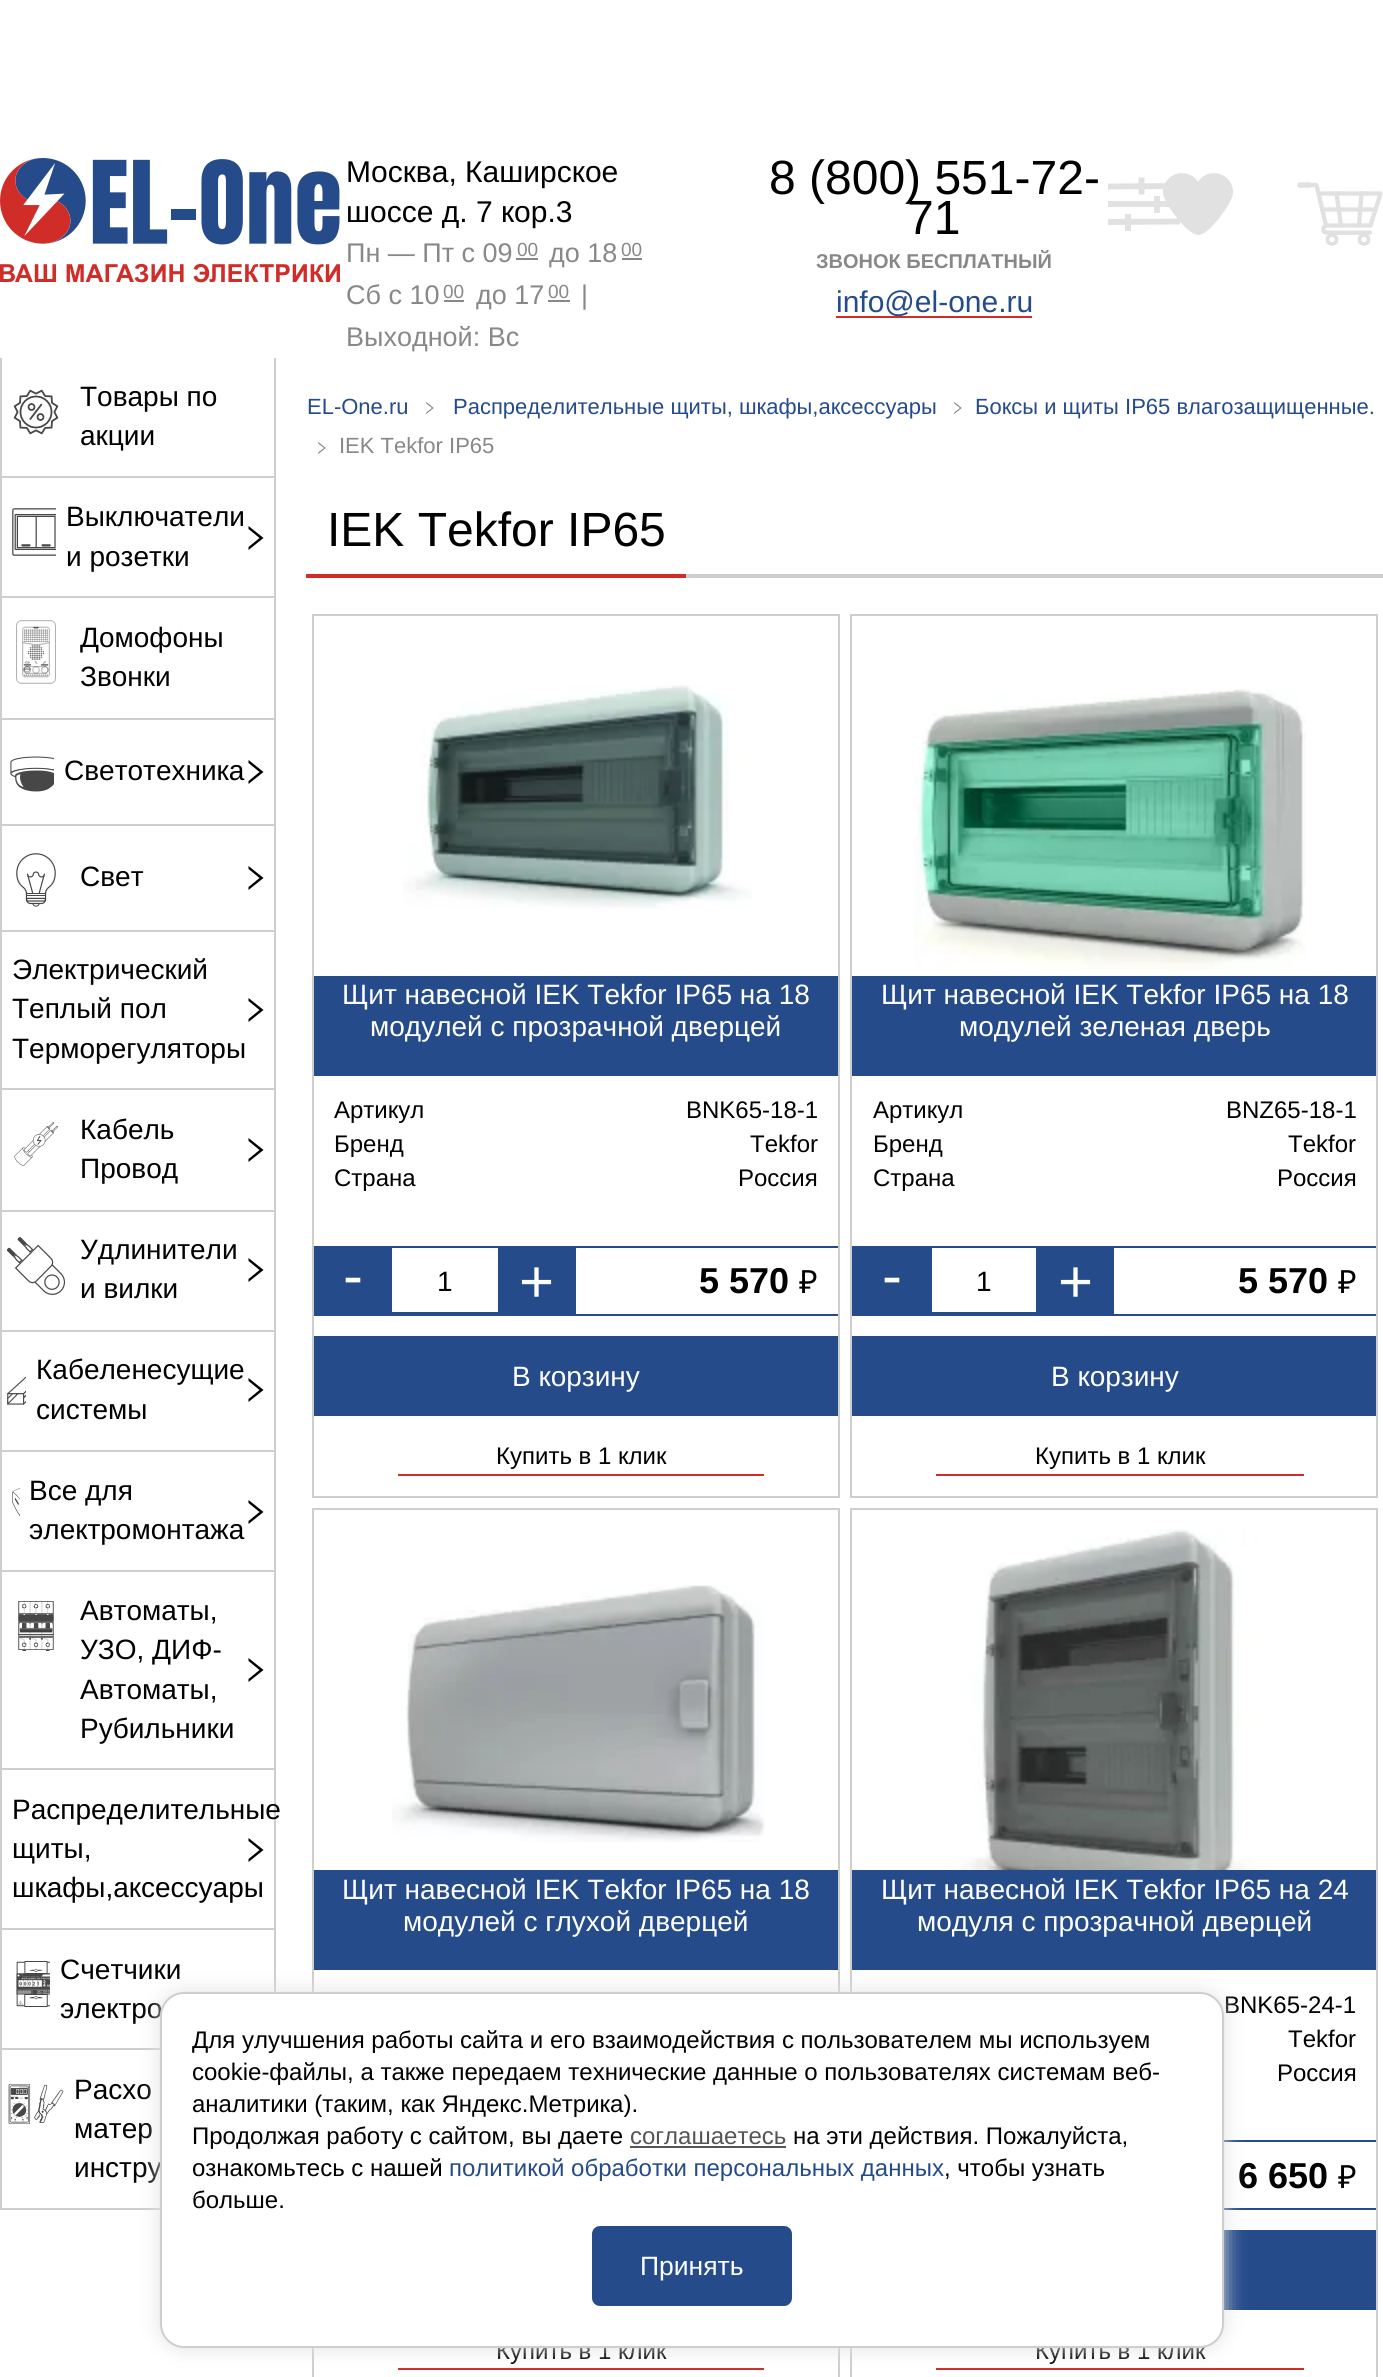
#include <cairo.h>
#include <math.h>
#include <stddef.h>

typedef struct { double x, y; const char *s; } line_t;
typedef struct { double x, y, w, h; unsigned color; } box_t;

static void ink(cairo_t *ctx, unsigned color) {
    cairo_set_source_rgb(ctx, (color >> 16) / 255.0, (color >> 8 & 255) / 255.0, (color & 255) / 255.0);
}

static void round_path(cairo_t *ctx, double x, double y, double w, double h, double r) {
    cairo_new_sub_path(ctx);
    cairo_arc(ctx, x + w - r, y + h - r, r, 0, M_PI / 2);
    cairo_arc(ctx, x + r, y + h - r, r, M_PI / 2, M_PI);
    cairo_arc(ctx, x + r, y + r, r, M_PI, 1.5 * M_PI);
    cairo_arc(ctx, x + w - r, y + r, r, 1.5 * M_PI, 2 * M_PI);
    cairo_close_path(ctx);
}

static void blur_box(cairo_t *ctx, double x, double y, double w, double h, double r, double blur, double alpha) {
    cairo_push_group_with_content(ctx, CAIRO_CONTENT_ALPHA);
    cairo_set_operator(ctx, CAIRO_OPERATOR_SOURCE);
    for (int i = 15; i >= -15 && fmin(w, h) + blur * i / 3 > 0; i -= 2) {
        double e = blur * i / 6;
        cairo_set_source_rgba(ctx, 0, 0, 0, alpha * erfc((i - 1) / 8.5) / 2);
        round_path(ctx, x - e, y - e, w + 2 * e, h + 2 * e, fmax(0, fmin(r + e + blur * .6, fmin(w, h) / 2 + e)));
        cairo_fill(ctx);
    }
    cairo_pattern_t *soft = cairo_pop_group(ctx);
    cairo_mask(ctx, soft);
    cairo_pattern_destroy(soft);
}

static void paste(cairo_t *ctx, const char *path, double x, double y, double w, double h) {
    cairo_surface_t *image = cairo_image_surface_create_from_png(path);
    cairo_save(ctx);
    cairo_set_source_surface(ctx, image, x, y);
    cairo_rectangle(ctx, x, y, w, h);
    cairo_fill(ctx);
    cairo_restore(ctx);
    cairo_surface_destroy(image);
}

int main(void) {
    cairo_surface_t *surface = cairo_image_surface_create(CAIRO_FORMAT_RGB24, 1383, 2377);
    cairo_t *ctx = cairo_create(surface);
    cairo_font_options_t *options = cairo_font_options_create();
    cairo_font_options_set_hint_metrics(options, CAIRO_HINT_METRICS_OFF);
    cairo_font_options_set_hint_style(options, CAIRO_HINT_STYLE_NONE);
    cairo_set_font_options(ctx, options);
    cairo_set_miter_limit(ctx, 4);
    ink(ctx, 0xFFFFFF);
    cairo_paint(ctx);
    ink(ctx, 0xE2E2E2);
    cairo_rectangle(ctx, 1154, 196, 6, 17);
    cairo_fill(ctx);
    paste(ctx, "media/1.png", 0, 158, 340, 125);
    cairo_select_font_face(ctx, "Liberation Sans", CAIRO_FONT_SLANT_NORMAL, CAIRO_FONT_WEIGHT_NORMAL);
    cairo_set_font_size(ctx, 30);
    ink(ctx, 0x000000);
    cairo_move_to(ctx, 346, 182);
    cairo_show_text(ctx, "Москва, Каширское");
    cairo_move_to(ctx, 346, 222);
    cairo_show_text(ctx, "шоссе д. 7 кор.3");
    cairo_set_font_size(ctx, 27);
    ink(ctx, 0x888888);
    cairo_move_to(ctx, 346, 262);
    cairo_show_text(ctx, "Пн — Пт с 09");
    cairo_set_font_size(ctx, 19);
    cairo_move_to(ctx, 517, 256);
    cairo_show_text(ctx, "00");
    cairo_rectangle(ctx, 516, 258, 22, 2);
    cairo_fill(ctx);
    cairo_set_font_size(ctx, 27);
    cairo_move_to(ctx, 549, 262);
    cairo_show_text(ctx, "до 18");
    cairo_set_font_size(ctx, 19);
    cairo_move_to(ctx, 621, 256);
    cairo_show_text(ctx, "00");
    cairo_rectangle(ctx, 622, 258, 20, 2);
    cairo_fill(ctx);
    cairo_set_font_size(ctx, 27);
    cairo_move_to(ctx, 346, 304);
    cairo_show_text(ctx, "Сб с 10");
    cairo_set_font_size(ctx, 19);
    cairo_move_to(ctx, 443, 298);
    cairo_show_text(ctx, "00");
    cairo_rectangle(ctx, 444, 300, 20, 2);
    cairo_fill(ctx);
    cairo_set_font_size(ctx, 27);
    cairo_move_to(ctx, 476, 304);
    cairo_show_text(ctx, "до 17");
    cairo_set_font_size(ctx, 19);
    cairo_move_to(ctx, 548, 298);
    cairo_show_text(ctx, "00");
    cairo_rectangle(ctx, 548, 300, 22, 2);
    cairo_fill(ctx);
    cairo_set_font_size(ctx, 27);
    cairo_move_to(ctx, 581, 304);
    cairo_show_text(ctx, "|");
    cairo_move_to(ctx, 346, 346);
    cairo_show_text(ctx, "Выходной: Вс");
    cairo_set_font_size(ctx, 48);
    ink(ctx, 0x000000);
    cairo_move_to(ctx, 769, 194);
    cairo_show_text(ctx, "8 (800) 551-72-");
    cairo_move_to(ctx, 907, 234);
    cairo_show_text(ctx, "71");
    cairo_select_font_face(ctx, "Liberation Sans", CAIRO_FONT_SLANT_NORMAL, CAIRO_FONT_WEIGHT_BOLD);
    cairo_set_font_size(ctx, 20);
    ink(ctx, 0x888888);
    cairo_move_to(ctx, 816, 268);
    cairo_show_text(ctx, "ЗВОНОК БЕСПЛАТНЫЙ");
    cairo_select_font_face(ctx, "Liberation Sans", CAIRO_FONT_SLANT_NORMAL, CAIRO_FONT_WEIGHT_NORMAL);
    cairo_set_font_size(ctx, 30);
    ink(ctx, 0x254B8A);
    cairo_move_to(ctx, 836, 312);
    cairo_show_text(ctx, "info@el-one.ru");
    ink(ctx, 0xD02D29);
    cairo_rectangle(ctx, 836, 316, 196, 2);
    cairo_fill(ctx);
    cairo_new_path(ctx);
    cairo_move_to(ctx, 1108, 186.5);
    cairo_line_to(ctx, 1180, 186);
    ink(ctx, 0xE1E1E1);
    cairo_set_line_width(ctx, 5.9);
    cairo_stroke(ctx);
    cairo_new_path(ctx);
    cairo_move_to(ctx, 1141.5, 177.5);
    cairo_line_to(ctx, 1141.5, 194.5);
    cairo_stroke(ctx);
    ink(ctx, 0xE2E2E2);
    cairo_rectangle(ctx, 1108, 201, 61, 6);
    cairo_fill(ctx);
    cairo_new_path(ctx);
    cairo_move_to(ctx, 1108, 222);
    cairo_line_to(ctx, 1180, 221.5);
    ink(ctx, 0xE1E1E1);
    cairo_stroke(ctx);
    cairo_set_source_rgba(ctx, 0.882, 0.882, 0.882, 0.98);
    cairo_rectangle(ctx, 1125, 214, 6, 17);
    cairo_fill(ctx);
    paste(ctx, "media/2.png", 1163, 173, 70, 62);
    cairo_new_path(ctx);
    cairo_move_to(ctx, 1302.5, 185);
    cairo_line_to(ctx, 1316.5, 185);
    cairo_line_to(ctx, 1326, 225.5);
    cairo_line_to(ctx, 1370.5, 225.5);
    cairo_line_to(ctx, 1380.5, 193.5);
    cairo_line_to(ctx, 1318.5, 193.5);
    ink(ctx, 0xE1E1E1);
    cairo_set_line_width(ctx, 4.3);
    cairo_set_line_cap(ctx, CAIRO_LINE_CAP_ROUND);
    cairo_set_line_join(ctx, CAIRO_LINE_JOIN_ROUND);
    cairo_stroke(ctx);
    cairo_new_path(ctx);
    cairo_move_to(ctx, 1326, 225.5);
    cairo_curve_to(ctx, 1323.5, 226.5, 1322, 230, 1324.5, 232);
    cairo_curve_to(ctx, 1326.5, 233.5, 1364, 232.5, 1370, 232.5);
    cairo_stroke(ctx);
    cairo_arc(ctx, 1332, 239.5, 4.5, 0, 2 * M_PI);
    cairo_set_line_width(ctx, 3.7);
    cairo_set_line_cap(ctx, CAIRO_LINE_CAP_BUTT);
    cairo_set_line_join(ctx, CAIRO_LINE_JOIN_MITER);
    cairo_stroke(ctx);
    cairo_arc(ctx, 1364, 239.5, 4.5, 0, 2 * M_PI);
    cairo_stroke(ctx);
    cairo_new_path(ctx);
    cairo_move_to(ctx, 1336.5, 193.5);
    cairo_line_to(ctx, 1341, 225.5);
    cairo_move_to(ctx, 1361.5, 193.5);
    cairo_line_to(ctx, 1359, 225.5);
    cairo_move_to(ctx, 1322.5, 209.5);
    cairo_line_to(ctx, 1375.5, 209.5);
    cairo_set_line_width(ctx, 4.3);
    cairo_set_line_cap(ctx, CAIRO_LINE_CAP_ROUND);
    cairo_set_line_join(ctx, CAIRO_LINE_JOIN_ROUND);
    cairo_stroke(ctx);
    cairo_new_path(ctx);
    cairo_move_to(ctx, 1300, 185);
    cairo_line_to(ctx, 1309.5, 185);
    cairo_set_line_width(ctx, 5.5);
    cairo_stroke(ctx);
    {
        static const box_t items[] = {
            {274, 358, 2, 1634, 0xCECECE},
            {0, 476, 276, 2, 0xCECECE},
            {0, 358, 2, 120, 0xCECECE},
        };
        for (size_t i = 0; i < sizeof items / sizeof *items; i++) {
            ink(ctx, items[i].color);
            cairo_rectangle(ctx, items[i].x, items[i].y, items[i].w, items[i].h);
            cairo_fill(ctx);
        }
    }
    paste(ctx, "media/3.png", 13, 389, 46, 46);
    cairo_set_font_size(ctx, 28);
    ink(ctx, 0x000000);
    cairo_move_to(ctx, 80, 406);
    cairo_show_text(ctx, "Товары по");
    cairo_move_to(ctx, 80, 445);
    cairo_show_text(ctx, "акции");
    ink(ctx, 0xCECECE);
    cairo_rectangle(ctx, 0, 596, 276, 2);
    cairo_fill(ctx);
    cairo_rectangle(ctx, 0, 478, 2, 120);
    cairo_fill(ctx);
    paste(ctx, "media/4.png", 12, 508, 44, 48);
    ink(ctx, 0x000000);
    cairo_move_to(ctx, 66, 526);
    cairo_show_text(ctx, "Выключатели");
    cairo_move_to(ctx, 66, 566);
    cairo_show_text(ctx, "и розетки");
    cairo_new_path(ctx);
    cairo_move_to(ctx, 263.5, 538);
    cairo_line_to(ctx, 248.5, 550);
    cairo_line_to(ctx, 248.5, 547);
    cairo_line_to(ctx, 259.5, 538);
    cairo_line_to(ctx, 248.5, 529);
    cairo_line_to(ctx, 248.5, 526);
    cairo_close_path(ctx);
    cairo_fill(ctx);
    ink(ctx, 0xCECECE);
    cairo_rectangle(ctx, 0, 718, 276, 2);
    cairo_fill(ctx);
    cairo_rectangle(ctx, 0, 598, 2, 122);
    cairo_fill(ctx);
    paste(ctx, "media/5.png", 16, 620, 40, 64);
    ink(ctx, 0x000000);
    cairo_move_to(ctx, 80, 647);
    cairo_show_text(ctx, "Домофоны");
    cairo_move_to(ctx, 80, 686);
    cairo_show_text(ctx, "Звонки");
    ink(ctx, 0xCECECE);
    cairo_rectangle(ctx, 0, 824, 276, 2);
    cairo_fill(ctx);
    cairo_rectangle(ctx, 0, 720, 2, 106);
    cairo_fill(ctx);
    paste(ctx, "media/6.png", 10, 756, 44, 36);
    ink(ctx, 0x000000);
    cairo_move_to(ctx, 64, 780);
    cairo_show_text(ctx, "Светотехника");
    cairo_new_path(ctx);
    cairo_move_to(ctx, 263.5, 772);
    cairo_line_to(ctx, 248.5, 784);
    cairo_line_to(ctx, 248.5, 781);
    cairo_line_to(ctx, 259.5, 772);
    cairo_line_to(ctx, 248.5, 763);
    cairo_line_to(ctx, 248.5, 760);
    cairo_close_path(ctx);
    cairo_fill(ctx);
    ink(ctx, 0xCECECE);
    cairo_rectangle(ctx, 0, 930, 276, 2);
    cairo_fill(ctx);
    cairo_rectangle(ctx, 0, 826, 2, 106);
    cairo_fill(ctx);
    paste(ctx, "media/7.png", 16, 853, 40, 54);
    ink(ctx, 0x000000);
    cairo_move_to(ctx, 80, 886);
    cairo_show_text(ctx, "Свет");
    cairo_new_path(ctx);
    cairo_move_to(ctx, 263.5, 878);
    cairo_line_to(ctx, 248.5, 890);
    cairo_line_to(ctx, 248.5, 887);
    cairo_line_to(ctx, 259.5, 878);
    cairo_line_to(ctx, 248.5, 869);
    cairo_line_to(ctx, 248.5, 866);
    cairo_close_path(ctx);
    cairo_fill(ctx);
    ink(ctx, 0xCECECE);
    cairo_rectangle(ctx, 0, 1088, 276, 2);
    cairo_fill(ctx);
    cairo_rectangle(ctx, 0, 932, 2, 158);
    cairo_fill(ctx);
    ink(ctx, 0x000000);
    {
        static const line_t items[] = {
            {12, 979, "Электрический"},
            {12, 1018, "Теплый пол"},
            {12, 1058, "Терморегуляторы"},
        };
        for (size_t i = 0; i < sizeof items / sizeof *items; i++) {
            cairo_move_to(ctx, items[i].x, items[i].y);
            cairo_show_text(ctx, items[i].s);
        }
    }
    cairo_new_path(ctx);
    cairo_move_to(ctx, 263.5, 1010);
    cairo_line_to(ctx, 248.5, 1022);
    cairo_line_to(ctx, 248.5, 1019);
    cairo_line_to(ctx, 259.5, 1010);
    cairo_line_to(ctx, 248.5, 1001);
    cairo_line_to(ctx, 248.5, 998);
    cairo_close_path(ctx);
    cairo_fill(ctx);
    ink(ctx, 0xCECECE);
    cairo_rectangle(ctx, 0, 1210, 276, 2);
    cairo_fill(ctx);
    cairo_rectangle(ctx, 0, 1090, 2, 122);
    cairo_fill(ctx);
    paste(ctx, "media/8.png", 14, 1122, 44, 44);
    ink(ctx, 0x000000);
    cairo_move_to(ctx, 80, 1139);
    cairo_show_text(ctx, "Кабель");
    cairo_move_to(ctx, 80, 1178);
    cairo_show_text(ctx, "Провод");
    cairo_new_path(ctx);
    cairo_move_to(ctx, 263.5, 1150);
    cairo_line_to(ctx, 248.5, 1162);
    cairo_line_to(ctx, 248.5, 1159);
    cairo_line_to(ctx, 259.5, 1150);
    cairo_line_to(ctx, 248.5, 1141);
    cairo_line_to(ctx, 248.5, 1138);
    cairo_close_path(ctx);
    cairo_fill(ctx);
    ink(ctx, 0xCECECE);
    cairo_rectangle(ctx, 0, 1330, 276, 2);
    cairo_fill(ctx);
    cairo_rectangle(ctx, 0, 1212, 2, 120);
    cairo_fill(ctx);
    paste(ctx, "media/9.png", 7, 1237, 59, 58);
    ink(ctx, 0x000000);
    cairo_move_to(ctx, 80, 1259);
    cairo_show_text(ctx, "Удлинители");
    cairo_move_to(ctx, 80, 1298);
    cairo_show_text(ctx, "и вилки");
    cairo_new_path(ctx);
    cairo_move_to(ctx, 263.5, 1270);
    cairo_line_to(ctx, 248.5, 1282);
    cairo_line_to(ctx, 248.5, 1279);
    cairo_line_to(ctx, 259.5, 1270);
    cairo_line_to(ctx, 248.5, 1261);
    cairo_line_to(ctx, 248.5, 1258);
    cairo_close_path(ctx);
    cairo_fill(ctx);
    ink(ctx, 0xCECECE);
    cairo_rectangle(ctx, 0, 1450, 276, 2);
    cairo_fill(ctx);
    cairo_rectangle(ctx, 0, 1332, 2, 120);
    cairo_fill(ctx);
    paste(ctx, "media/10.png", 7, 1376, 19, 29);
    ink(ctx, 0x000000);
    cairo_move_to(ctx, 36, 1379);
    cairo_show_text(ctx, "Кабеленесущие");
    cairo_move_to(ctx, 36, 1419);
    cairo_show_text(ctx, "системы");
    cairo_new_path(ctx);
    cairo_move_to(ctx, 263.5, 1390);
    cairo_line_to(ctx, 248.5, 1402);
    cairo_line_to(ctx, 248.5, 1399);
    cairo_line_to(ctx, 259.5, 1390);
    cairo_line_to(ctx, 248.5, 1381);
    cairo_line_to(ctx, 248.5, 1378);
    cairo_close_path(ctx);
    cairo_fill(ctx);
    ink(ctx, 0xCECECE);
    cairo_rectangle(ctx, 0, 1570, 276, 2);
    cairo_fill(ctx);
    cairo_rectangle(ctx, 0, 1452, 2, 120);
    cairo_fill(ctx);
    paste(ctx, "media/11.png", 12, 1488, 8, 28);
    ink(ctx, 0x000000);
    cairo_move_to(ctx, 29, 1500);
    cairo_show_text(ctx, "Все для");
    cairo_move_to(ctx, 29, 1539);
    cairo_show_text(ctx, "электромонтажа");
    cairo_new_path(ctx);
    cairo_move_to(ctx, 263.5, 1512);
    cairo_line_to(ctx, 248.5, 1524);
    cairo_line_to(ctx, 248.5, 1521);
    cairo_line_to(ctx, 259.5, 1512);
    cairo_line_to(ctx, 248.5, 1503);
    cairo_line_to(ctx, 248.5, 1500);
    cairo_close_path(ctx);
    cairo_fill(ctx);
    ink(ctx, 0xCECECE);
    cairo_rectangle(ctx, 0, 1768, 276, 2);
    cairo_fill(ctx);
    cairo_rectangle(ctx, 0, 1572, 2, 198);
    cairo_fill(ctx);
    paste(ctx, "media/12.png", 18, 1600, 36, 51);
    ink(ctx, 0x000000);
    {
        static const line_t items[] = {
            {80, 1620, "Автоматы,"},
            {80, 1659, "УЗО, ДИФ-"},
            {80, 1699, "Автоматы,"},
            {80, 1738, "Рубильники"},
        };
        for (size_t i = 0; i < sizeof items / sizeof *items; i++) {
            cairo_move_to(ctx, items[i].x, items[i].y);
            cairo_show_text(ctx, items[i].s);
        }
    }
    cairo_new_path(ctx);
    cairo_move_to(ctx, 263.5, 1670);
    cairo_line_to(ctx, 248.5, 1682);
    cairo_line_to(ctx, 248.5, 1679);
    cairo_line_to(ctx, 259.5, 1670);
    cairo_line_to(ctx, 248.5, 1661);
    cairo_line_to(ctx, 248.5, 1658);
    cairo_close_path(ctx);
    cairo_fill(ctx);
    ink(ctx, 0xCECECE);
    cairo_rectangle(ctx, 0, 1928, 276, 2);
    cairo_fill(ctx);
    cairo_rectangle(ctx, 0, 1770, 2, 160);
    cairo_fill(ctx);
    ink(ctx, 0x000000);
    {
        static const line_t items[] = {
            {12, 1819, "Распределительные"},
            {12, 1858, "щиты,"},
            {12, 1897, "шкафы,аксессуары"},
        };
        for (size_t i = 0; i < sizeof items / sizeof *items; i++) {
            cairo_move_to(ctx, items[i].x, items[i].y);
            cairo_show_text(ctx, items[i].s);
        }
    }
    cairo_new_path(ctx);
    cairo_move_to(ctx, 263.5, 1850);
    cairo_line_to(ctx, 248.5, 1862);
    cairo_line_to(ctx, 248.5, 1859);
    cairo_line_to(ctx, 259.5, 1850);
    cairo_line_to(ctx, 248.5, 1841);
    cairo_line_to(ctx, 248.5, 1838);
    cairo_close_path(ctx);
    cairo_fill(ctx);
    ink(ctx, 0xCECECE);
    cairo_rectangle(ctx, 0, 2048, 160, 2);
    cairo_fill(ctx);
    cairo_rectangle(ctx, 0, 1930, 2, 120);
    cairo_fill(ctx);
    paste(ctx, "media/13.png", 16, 1961, 34, 46);
    ink(ctx, 0x000000);
    cairo_move_to(ctx, 60, 1979);
    cairo_show_text(ctx, "Счетчики");
    cairo_move_to(ctx, 60, 2018);
    cairo_show_text(ctx, "электро");
    ink(ctx, 0xCECECE);
    cairo_rectangle(ctx, 0, 2208, 160, 2);
    cairo_fill(ctx);
    cairo_rectangle(ctx, 0, 2050, 2, 160);
    cairo_fill(ctx);
    paste(ctx, "media/14.png", 8, 2084, 56, 40);
    ink(ctx, 0x000000);
    {
        static const line_t items[] = {
            {74, 2099, "Расхо"},
            {74, 2138, "матер"},
            {74, 2177, "инстру"},
        };
        for (size_t i = 0; i < sizeof items / sizeof *items; i++) {
            cairo_move_to(ctx, items[i].x, items[i].y);
            cairo_show_text(ctx, items[i].s);
        }
    }
    cairo_set_font_size(ctx, 22);
    ink(ctx, 0x254B8A);
    cairo_move_to(ctx, 307, 414);
    cairo_show_text(ctx, "EL-One.ru");
    paste(ctx, "media/15.png", 426, 402, 8, 12);
    cairo_move_to(ctx, 453, 414);
    cairo_show_text(ctx, "Распределительные щиты, шкафы,аксессуары");
    paste(ctx, "media/15.png", 954, 402, 8, 12);
    cairo_move_to(ctx, 975, 414);
    cairo_show_text(ctx, "Боксы и щиты IP65 влагозащищенные.");
    paste(ctx, "media/15.png", 318, 442, 8, 12);
    ink(ctx, 0x888888);
    cairo_move_to(ctx, 339, 453);
    cairo_show_text(ctx, "IEK Tekfor IP65");
    ink(ctx, 0xCECECE);
    cairo_rectangle(ctx, 686, 574, 697, 4);
    cairo_fill(ctx);
    ink(ctx, 0xD02D29);
    cairo_rectangle(ctx, 306, 574, 380, 4);
    cairo_fill(ctx);
    cairo_set_font_size(ctx, 48);
    ink(ctx, 0x000000);
    cairo_move_to(ctx, 327, 546);
    cairo_show_text(ctx, "IEK Tekfor IP65");
    cairo_rectangle(ctx, 313, 615, 526, 882);
    ink(ctx, 0xCECECE);
    cairo_set_line_width(ctx, 2);
    cairo_set_line_cap(ctx, CAIRO_LINE_CAP_BUTT);
    cairo_set_line_join(ctx, CAIRO_LINE_JOIN_MITER);
    cairo_stroke(ctx);
    paste(ctx, "media/16.png", 403, 685, 349, 224);
    ink(ctx, 0x254B8A);
    cairo_rectangle(ctx, 314, 976, 524, 100);
    cairo_fill(ctx);
    cairo_set_font_size(ctx, 28);
    ink(ctx, 0xFFFFFF);
    cairo_move_to(ctx, 342, 1004);
    cairo_show_text(ctx, "Щит навесной IEK Tekfor IP65 на 18");
    cairo_move_to(ctx, 370, 1036);
    cairo_show_text(ctx, "модулей с прозрачной дверцей");
    cairo_set_font_size(ctx, 24);
    ink(ctx, 0x000000);
    {
        static const line_t items[] = {
            {334, 1118, "Артикул"},
            {686, 1118, "BNK65-18-1"},
            {334, 1152, "Бренд"},
            {750, 1152, "Tekfor"},
            {334, 1186, "Страна"},
            {738, 1186, "Россия"},
        };
        for (size_t i = 0; i < sizeof items / sizeof *items; i++) {
            cairo_move_to(ctx, items[i].x, items[i].y);
            cairo_show_text(ctx, items[i].s);
        }
    }
    {
        static const box_t items[] = {
            {576, 1314, 262, 2, 0x254B8A},
            {576, 1246, 262, 2, 0x254B8A},
            {314, 1246, 262, 70, 0x254B8A},
        };
        for (size_t i = 0; i < sizeof items / sizeof *items; i++) {
            ink(ctx, items[i].color);
            cairo_rectangle(ctx, items[i].x, items[i].y, items[i].w, items[i].h);
            cairo_fill(ctx);
        }
    }
    cairo_set_font_size(ctx, 60);
    ink(ctx, 0xFFFFFF);
    cairo_move_to(ctx, 343, 1296);
    cairo_show_text(ctx, "-");
    cairo_rectangle(ctx, 392, 1248, 106, 64);
    cairo_fill(ctx);
    cairo_set_font_size(ctx, 28);
    ink(ctx, 0x000000);
    cairo_move_to(ctx, 437, 1291);
    cairo_show_text(ctx, "1");
    cairo_set_font_size(ctx, 60);
    ink(ctx, 0xFFFFFF);
    cairo_move_to(ctx, 519, 1302);
    cairo_show_text(ctx, "+");
    cairo_select_font_face(ctx, "Liberation Sans", CAIRO_FONT_SLANT_NORMAL, CAIRO_FONT_WEIGHT_BOLD);
    cairo_set_font_size(ctx, 36);
    ink(ctx, 0x000000);
    cairo_move_to(ctx, 699, 1293);
    cairo_show_text(ctx, "5 570");
    cairo_select_font_face(ctx, "Noto Sans", CAIRO_FONT_SLANT_NORMAL, CAIRO_FONT_WEIGHT_NORMAL);
    cairo_set_font_size(ctx, 32);
    cairo_move_to(ctx, 799, 1293);
    cairo_show_text(ctx, "₽");
    ink(ctx, 0x254B8A);
    cairo_rectangle(ctx, 314, 1336, 524, 80);
    cairo_fill(ctx);
    cairo_select_font_face(ctx, "Liberation Sans", CAIRO_FONT_SLANT_NORMAL, CAIRO_FONT_WEIGHT_NORMAL);
    cairo_set_font_size(ctx, 28);
    ink(ctx, 0xFFFFFF);
    cairo_move_to(ctx, 512, 1386);
    cairo_show_text(ctx, "В корзину");
    cairo_set_font_size(ctx, 24);
    ink(ctx, 0x000000);
    cairo_move_to(ctx, 496, 1464);
    cairo_show_text(ctx, "Купить в 1 клик");
    ink(ctx, 0xD02D29);
    cairo_rectangle(ctx, 398, 1474, 366, 2);
    cairo_fill(ctx);
    cairo_rectangle(ctx, 851, 615, 526, 882);
    ink(ctx, 0xCECECE);
    cairo_stroke(ctx);
    paste(ctx, "media/17.png", 914, 689, 392, 287);
    ink(ctx, 0x254B8A);
    cairo_rectangle(ctx, 852, 976, 524, 100);
    cairo_fill(ctx);
    cairo_set_font_size(ctx, 28);
    ink(ctx, 0xFFFFFF);
    cairo_move_to(ctx, 881, 1004);
    cairo_show_text(ctx, "Щит навесной IEK Tekfor IP65 на 18");
    cairo_move_to(ctx, 959, 1036);
    cairo_show_text(ctx, "модулей зеленая дверь");
    cairo_set_font_size(ctx, 24);
    ink(ctx, 0x000000);
    {
        static const line_t items[] = {
            {873, 1118, "Артикул"},
            {1226, 1118, "BNZ65-18-1"},
            {873, 1152, "Бренд"},
            {1288, 1152, "Tekfor"},
            {873, 1186, "Страна"},
            {1277, 1186, "Россия"},
        };
        for (size_t i = 0; i < sizeof items / sizeof *items; i++) {
            cairo_move_to(ctx, items[i].x, items[i].y);
            cairo_show_text(ctx, items[i].s);
        }
    }
    {
        static const box_t items[] = {
            {1114, 1314, 262, 2, 0x254B8A},
            {1114, 1246, 262, 2, 0x254B8A},
            {852, 1246, 262, 70, 0x254B8A},
        };
        for (size_t i = 0; i < sizeof items / sizeof *items; i++) {
            ink(ctx, items[i].color);
            cairo_rectangle(ctx, items[i].x, items[i].y, items[i].w, items[i].h);
            cairo_fill(ctx);
        }
    }
    cairo_set_font_size(ctx, 60);
    ink(ctx, 0xFFFFFF);
    cairo_move_to(ctx, 882, 1296);
    cairo_show_text(ctx, "-");
    cairo_rectangle(ctx, 932, 1248, 104, 64);
    cairo_fill(ctx);
    cairo_set_font_size(ctx, 28);
    ink(ctx, 0x000000);
    cairo_move_to(ctx, 976, 1291);
    cairo_show_text(ctx, "1");
    cairo_set_font_size(ctx, 60);
    ink(ctx, 0xFFFFFF);
    cairo_move_to(ctx, 1058, 1302);
    cairo_show_text(ctx, "+");
    cairo_select_font_face(ctx, "Liberation Sans", CAIRO_FONT_SLANT_NORMAL, CAIRO_FONT_WEIGHT_BOLD);
    cairo_set_font_size(ctx, 36);
    ink(ctx, 0x000000);
    cairo_move_to(ctx, 1238, 1293);
    cairo_show_text(ctx, "5 570");
    cairo_select_font_face(ctx, "Noto Sans", CAIRO_FONT_SLANT_NORMAL, CAIRO_FONT_WEIGHT_NORMAL);
    cairo_set_font_size(ctx, 32);
    cairo_move_to(ctx, 1338, 1293);
    cairo_show_text(ctx, "₽");
    ink(ctx, 0x254B8A);
    cairo_rectangle(ctx, 852, 1336, 524, 80);
    cairo_fill(ctx);
    cairo_select_font_face(ctx, "Liberation Sans", CAIRO_FONT_SLANT_NORMAL, CAIRO_FONT_WEIGHT_NORMAL);
    cairo_set_font_size(ctx, 28);
    ink(ctx, 0xFFFFFF);
    cairo_move_to(ctx, 1051, 1386);
    cairo_show_text(ctx, "В корзину");
    cairo_set_font_size(ctx, 24);
    ink(ctx, 0x000000);
    cairo_move_to(ctx, 1035, 1464);
    cairo_show_text(ctx, "Купить в 1 клик");
    ink(ctx, 0xD02D29);
    cairo_rectangle(ctx, 936, 1474, 368, 2);
    cairo_fill(ctx);
    cairo_rectangle(ctx, 313, 1509, 526, 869);
    ink(ctx, 0xCECECE);
    cairo_stroke(ctx);
    paste(ctx, "media/18.png", 392, 1585, 373, 257);
    ink(ctx, 0x254B8A);
    cairo_rectangle(ctx, 314, 1870, 524, 100);
    cairo_fill(ctx);
    cairo_set_font_size(ctx, 28);
    ink(ctx, 0xFFFFFF);
    cairo_move_to(ctx, 342, 1899);
    cairo_show_text(ctx, "Щит навесной IEK Tekfor IP65 на 18");
    cairo_move_to(ctx, 403, 1931);
    cairo_show_text(ctx, "модулей с глухой дверцей");
    cairo_set_font_size(ctx, 24);
    ink(ctx, 0x000000);
    cairo_move_to(ctx, 496, 2359);
    cairo_show_text(ctx, "Купить в 1 клик");
    ink(ctx, 0xD02D29);
    cairo_rectangle(ctx, 398, 2368, 366, 2);
    cairo_fill(ctx);
    cairo_rectangle(ctx, 851, 1509, 526, 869);
    ink(ctx, 0xCECECE);
    cairo_stroke(ctx);
    paste(ctx, "media/19.png", 931, 1529, 335, 341);
    ink(ctx, 0x254B8A);
    cairo_rectangle(ctx, 852, 1870, 524, 100);
    cairo_fill(ctx);
    cairo_set_font_size(ctx, 28);
    ink(ctx, 0xFFFFFF);
    cairo_move_to(ctx, 881, 1899);
    cairo_show_text(ctx, "Щит навесной IEK Tekfor IP65 на 24");
    cairo_move_to(ctx, 917, 1931);
    cairo_show_text(ctx, "модуля с прозрачной дверцей");
    cairo_set_font_size(ctx, 24);
    ink(ctx, 0x000000);
    {
        static const line_t items[] = {
            {1224, 2013, "BNK65-24-1"},
            {1288, 2047, "Tekfor"},
            {1277, 2081, "Россия"},
        };
        for (size_t i = 0; i < sizeof items / sizeof *items; i++) {
            cairo_move_to(ctx, items[i].x, items[i].y);
            cairo_show_text(ctx, items[i].s);
        }
    }
    ink(ctx, 0x254B8A);
    cairo_rectangle(ctx, 1224, 2208, 152, 2);
    cairo_fill(ctx);
    cairo_rectangle(ctx, 1224, 2140, 152, 2);
    cairo_fill(ctx);
    cairo_select_font_face(ctx, "Liberation Sans", CAIRO_FONT_SLANT_NORMAL, CAIRO_FONT_WEIGHT_BOLD);
    cairo_set_font_size(ctx, 36);
    ink(ctx, 0x000000);
    cairo_move_to(ctx, 1238, 2188);
    cairo_show_text(ctx, "6 650");
    cairo_select_font_face(ctx, "Noto Sans", CAIRO_FONT_SLANT_NORMAL, CAIRO_FONT_WEIGHT_NORMAL);
    cairo_set_font_size(ctx, 32);
    cairo_move_to(ctx, 1338, 2188);
    cairo_show_text(ctx, "₽");
    ink(ctx, 0x254B8A);
    cairo_rectangle(ctx, 1224, 2230, 152, 80);
    cairo_fill(ctx);
    cairo_select_font_face(ctx, "Liberation Sans", CAIRO_FONT_SLANT_NORMAL, CAIRO_FONT_WEIGHT_NORMAL);
    cairo_set_font_size(ctx, 24);
    ink(ctx, 0x000000);
    cairo_move_to(ctx, 1035, 2359);
    cairo_show_text(ctx, "Купить в 1 клик");
    ink(ctx, 0xD02D29);
    cairo_rectangle(ctx, 936, 2368, 368, 2);
    cairo_fill(ctx);
    ink(ctx, 0xE0E0E0);
    blur_box(ctx, 160, 1992, 1064, 356, 24, 10, 1);
    ink(ctx, 0xFFFFFF);
    round_path(ctx, 161, 1993, 1062, 354, 23);
    cairo_fill_preserve(ctx);
    ink(ctx, 0xCECECE);
    cairo_stroke(ctx);
    ink(ctx, 0x000000);
    {
        static const line_t items[] = {
            {192, 2048, "Для улучшения работы сайта и его взаимодействия с пользователем мы используем"},
            {192, 2080, "cookie-файлы, а также передаем технические данные о пользователях системам веб-"},
            {192, 2112, "аналитики (таким, как Яндекс.Метрика)."},
            {192, 2144, "Продолжая работу с сайтом, вы даете"},
        };
        for (size_t i = 0; i < sizeof items / sizeof *items; i++) {
            cairo_move_to(ctx, items[i].x, items[i].y);
            cairo_show_text(ctx, items[i].s);
        }
    }
    ink(ctx, 0x555555);
    cairo_move_to(ctx, 630, 2144);
    cairo_show_text(ctx, "соглашаетесь");
    cairo_rectangle(ctx, 630, 2146, 156, 2);
    cairo_fill(ctx);
    ink(ctx, 0x000000);
    cairo_move_to(ctx, 793, 2144);
    cairo_show_text(ctx, "на эти действия. Пожалуйста,");
    cairo_move_to(ctx, 192, 2176);
    cairo_show_text(ctx, "ознакомьтесь с нашей");
    ink(ctx, 0x254B8A);
    cairo_move_to(ctx, 449, 2176);
    cairo_show_text(ctx, "политикой обработки персональных данных");
    ink(ctx, 0x000000);
    cairo_move_to(ctx, 944, 2176);
    cairo_show_text(ctx, ", чтобы узнать");
    cairo_move_to(ctx, 192, 2208);
    cairo_show_text(ctx, "больше.");
    ink(ctx, 0x254B8A);
    round_path(ctx, 592, 2226, 200, 80, 8);
    cairo_fill(ctx);
    cairo_set_font_size(ctx, 26.5);
    ink(ctx, 0xFFFFFF);
    cairo_move_to(ctx, 640, 2275);
    cairo_show_text(ctx, "Принять");
    cairo_surface_write_to_png(surface, "image.png");
    cairo_font_options_destroy(options);
    cairo_destroy(ctx);
    cairo_surface_destroy(surface);
    return 0;
}
